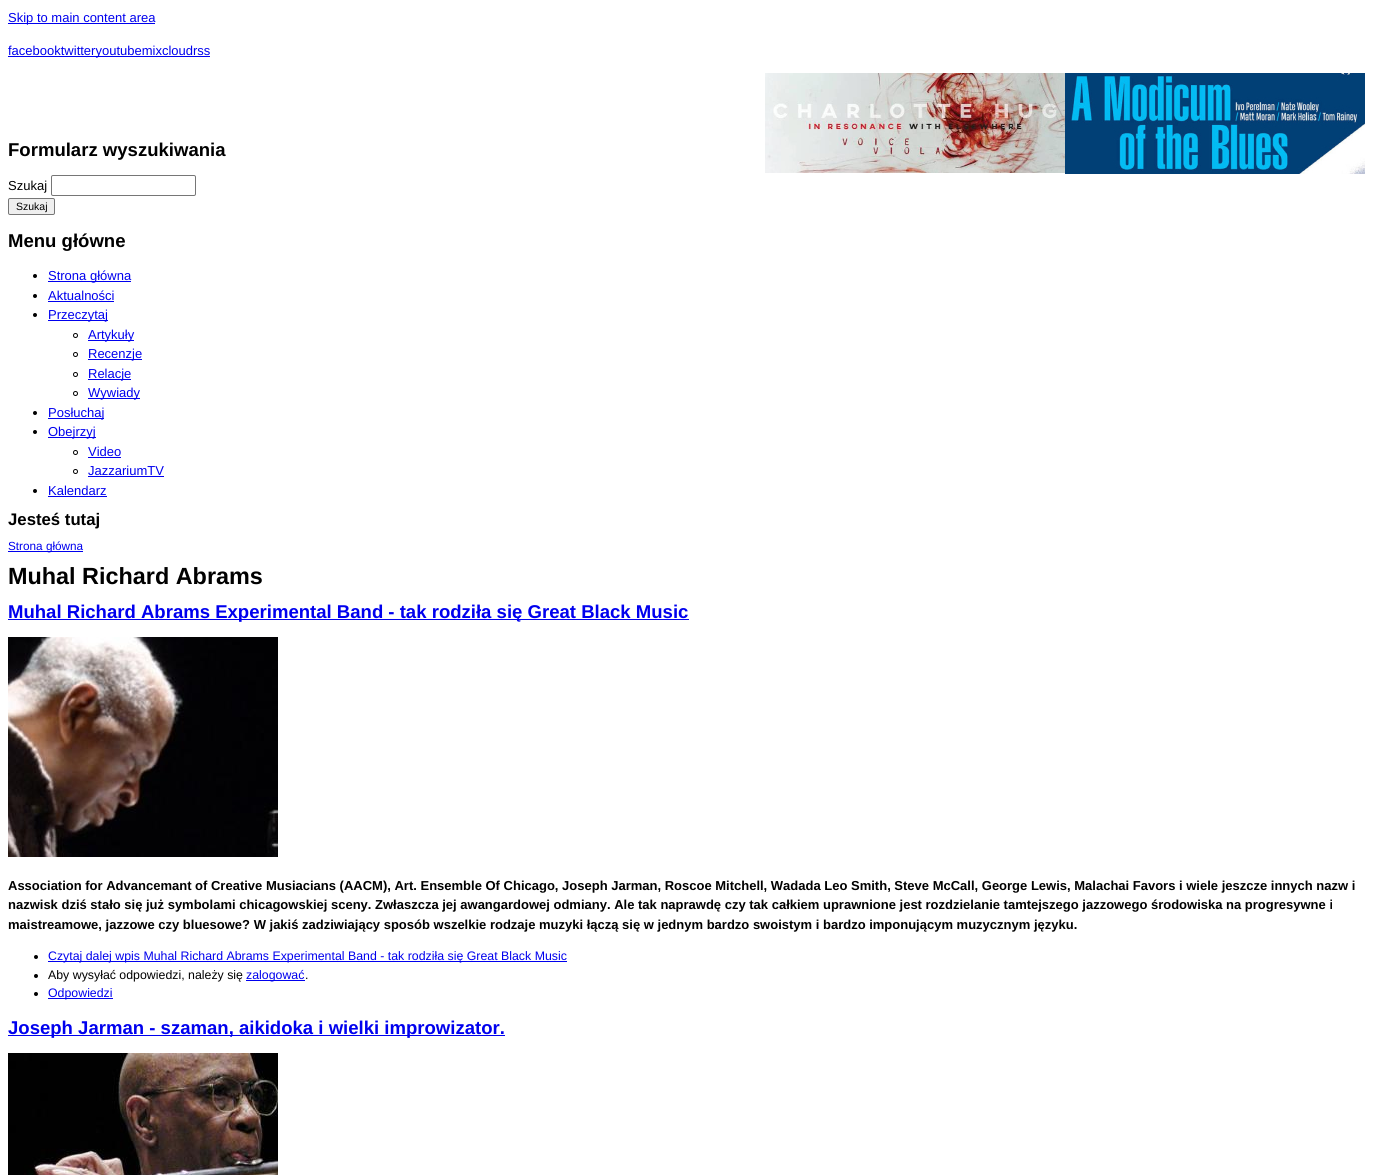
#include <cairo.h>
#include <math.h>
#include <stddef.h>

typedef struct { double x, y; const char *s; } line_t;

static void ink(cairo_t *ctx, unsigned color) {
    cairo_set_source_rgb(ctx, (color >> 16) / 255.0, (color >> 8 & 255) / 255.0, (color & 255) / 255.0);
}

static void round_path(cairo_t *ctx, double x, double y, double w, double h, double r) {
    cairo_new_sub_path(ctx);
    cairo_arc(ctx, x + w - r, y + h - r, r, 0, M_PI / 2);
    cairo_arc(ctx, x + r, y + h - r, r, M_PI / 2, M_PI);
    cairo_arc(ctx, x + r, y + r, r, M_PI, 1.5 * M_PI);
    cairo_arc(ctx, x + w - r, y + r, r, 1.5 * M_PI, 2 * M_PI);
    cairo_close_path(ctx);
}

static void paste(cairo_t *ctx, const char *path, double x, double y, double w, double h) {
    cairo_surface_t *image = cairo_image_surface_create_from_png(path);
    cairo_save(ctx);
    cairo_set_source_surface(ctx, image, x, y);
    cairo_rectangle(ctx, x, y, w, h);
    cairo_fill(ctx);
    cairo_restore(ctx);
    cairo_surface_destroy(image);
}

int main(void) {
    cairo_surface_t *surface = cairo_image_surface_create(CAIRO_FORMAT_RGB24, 1373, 1175);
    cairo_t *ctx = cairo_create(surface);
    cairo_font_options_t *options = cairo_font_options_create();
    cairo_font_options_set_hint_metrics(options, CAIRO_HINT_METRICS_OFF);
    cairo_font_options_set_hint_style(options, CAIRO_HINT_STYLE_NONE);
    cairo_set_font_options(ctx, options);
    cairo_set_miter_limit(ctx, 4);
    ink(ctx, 0xFFFFFF);
    cairo_paint(ctx);
    ink(ctx, 0x0000EE);
    cairo_rectangle(ctx, 8, 23, 147, 1);
    cairo_fill(ctx);
    cairo_select_font_face(ctx, "Liberation Sans", CAIRO_FONT_SLANT_NORMAL, CAIRO_FONT_WEIGHT_NORMAL);
    cairo_set_font_size(ctx, 13);
    cairo_move_to(ctx, 8, 22);
    cairo_show_text(ctx, "Skip to main content area");
    cairo_rectangle(ctx, 8, 56, 202, 1);
    cairo_fill(ctx);
    cairo_move_to(ctx, 8, 55);
    cairo_show_text(ctx, "facebooktwitteryoutubemixcloudrss");
    paste(ctx, "media/1.png", 765, 73, 300, 100);
    paste(ctx, "media/2.png", 1065, 73, 300, 101);
    cairo_select_font_face(ctx, "Liberation Sans", CAIRO_FONT_SLANT_NORMAL, CAIRO_FONT_WEIGHT_BOLD);
    cairo_set_font_size(ctx, 18.55);
    ink(ctx, 0x000000);
    cairo_move_to(ctx, 8, 156);
    cairo_show_text(ctx, "Formularz wyszukiwania");
    cairo_select_font_face(ctx, "Liberation Sans", CAIRO_FONT_SLANT_NORMAL, CAIRO_FONT_WEIGHT_NORMAL);
    cairo_set_font_size(ctx, 13);
    cairo_move_to(ctx, 8, 190);
    cairo_show_text(ctx, "Szukaj");
    round_path(ctx, 51.5, 175.5, 144, 20, 1.5);
    ink(ctx, 0x767676);
    cairo_set_line_width(ctx, 1);
    cairo_stroke(ctx);
    ink(ctx, 0xEFEFEF);
    round_path(ctx, 8.5, 198.5, 46, 16, 1.5);
    cairo_fill_preserve(ctx);
    ink(ctx, 0x767676);
    cairo_stroke(ctx);
    cairo_set_font_size(ctx, 10.5);
    ink(ctx, 0x000000);
    cairo_move_to(ctx, 16, 210);
    cairo_show_text(ctx, "Szukaj");
    cairo_select_font_face(ctx, "Liberation Sans", CAIRO_FONT_SLANT_NORMAL, CAIRO_FONT_WEIGHT_BOLD);
    cairo_set_font_size(ctx, 18.55);
    cairo_move_to(ctx, 8, 247);
    cairo_show_text(ctx, "Menu główne");
    cairo_new_path(ctx);
    cairo_arc(ctx, 35, 276, 2, 0, 2 * M_PI);
    cairo_fill(ctx);
    ink(ctx, 0x0000EE);
    cairo_rectangle(ctx, 48, 281, 83, 1);
    cairo_fill(ctx);
    cairo_select_font_face(ctx, "Liberation Sans", CAIRO_FONT_SLANT_NORMAL, CAIRO_FONT_WEIGHT_NORMAL);
    cairo_set_font_size(ctx, 13);
    cairo_move_to(ctx, 48, 280);
    cairo_show_text(ctx, "Strona główna");
    ink(ctx, 0x000000);
    cairo_new_path(ctx);
    cairo_arc(ctx, 35, 296, 2, 0, 2 * M_PI);
    cairo_fill(ctx);
    ink(ctx, 0x0000EE);
    cairo_move_to(ctx, 48, 300);
    cairo_show_text(ctx, "Aktualności");
    cairo_rectangle(ctx, 48, 301, 66, 1);
    cairo_fill(ctx);
    ink(ctx, 0x000000);
    cairo_arc(ctx, 35, 315, 2, 0, 2 * M_PI);
    cairo_fill(ctx);
    ink(ctx, 0x0000EE);
    cairo_rectangle(ctx, 48, 320, 60, 1);
    cairo_fill(ctx);
    cairo_move_to(ctx, 48, 319);
    cairo_show_text(ctx, "Przeczytaj");
    cairo_new_path(ctx);
    cairo_arc(ctx, 75.5, 335.5, 2, 0, 2 * M_PI);
    ink(ctx, 0x000000);
    cairo_stroke(ctx);
    ink(ctx, 0x0000EE);
    cairo_rectangle(ctx, 88, 340, 46, 1);
    cairo_fill(ctx);
    cairo_move_to(ctx, 88, 339);
    cairo_show_text(ctx, "Artykuły");
    cairo_new_path(ctx);
    cairo_arc(ctx, 75.5, 354.5, 2, 0, 2 * M_PI);
    ink(ctx, 0x000000);
    cairo_stroke(ctx);
    ink(ctx, 0x0000EE);
    cairo_rectangle(ctx, 88, 359, 54, 1);
    cairo_fill(ctx);
    cairo_move_to(ctx, 88, 358);
    cairo_show_text(ctx, "Recenzje");
    cairo_new_path(ctx);
    cairo_arc(ctx, 75.5, 374.5, 2, 0, 2 * M_PI);
    ink(ctx, 0x000000);
    cairo_stroke(ctx);
    ink(ctx, 0x0000EE);
    cairo_rectangle(ctx, 88, 379, 43, 1);
    cairo_fill(ctx);
    cairo_move_to(ctx, 88, 378);
    cairo_show_text(ctx, "Relacje");
    cairo_new_path(ctx);
    cairo_arc(ctx, 75.5, 393.5, 2, 0, 2 * M_PI);
    ink(ctx, 0x000000);
    cairo_stroke(ctx);
    ink(ctx, 0x0000EE);
    cairo_rectangle(ctx, 88, 398, 52, 1);
    cairo_fill(ctx);
    cairo_move_to(ctx, 88, 397);
    cairo_show_text(ctx, "Wywiady");
    ink(ctx, 0x000000);
    cairo_new_path(ctx);
    cairo_arc(ctx, 35, 413, 2, 0, 2 * M_PI);
    cairo_fill(ctx);
    ink(ctx, 0x0000EE);
    cairo_rectangle(ctx, 48, 418, 56, 1);
    cairo_fill(ctx);
    cairo_move_to(ctx, 48, 417);
    cairo_show_text(ctx, "Posłuchaj");
    ink(ctx, 0x000000);
    cairo_new_path(ctx);
    cairo_arc(ctx, 35, 432, 2, 0, 2 * M_PI);
    cairo_fill(ctx);
    ink(ctx, 0x0000EE);
    cairo_rectangle(ctx, 48, 437, 48, 1);
    cairo_fill(ctx);
    cairo_move_to(ctx, 48, 436);
    cairo_show_text(ctx, "Obejrzyj");
    cairo_new_path(ctx);
    cairo_arc(ctx, 75.5, 452.5, 2, 0, 2 * M_PI);
    ink(ctx, 0x000000);
    cairo_stroke(ctx);
    ink(ctx, 0x0000EE);
    cairo_move_to(ctx, 88, 456);
    cairo_show_text(ctx, "Video");
    cairo_rectangle(ctx, 88, 457, 33, 1);
    cairo_fill(ctx);
    cairo_arc(ctx, 75.5, 471.5, 2, 0, 2 * M_PI);
    ink(ctx, 0x000000);
    cairo_stroke(ctx);
    ink(ctx, 0x0000EE);
    cairo_move_to(ctx, 88, 475);
    cairo_show_text(ctx, "JazzariumTV");
    cairo_rectangle(ctx, 88, 476, 76, 1);
    cairo_fill(ctx);
    ink(ctx, 0x000000);
    cairo_arc(ctx, 35, 491, 2, 0, 2 * M_PI);
    cairo_fill(ctx);
    ink(ctx, 0x0000EE);
    cairo_move_to(ctx, 48, 495);
    cairo_show_text(ctx, "Kalendarz");
    cairo_rectangle(ctx, 48, 496, 59, 1);
    cairo_fill(ctx);
    cairo_select_font_face(ctx, "Liberation Sans", CAIRO_FONT_SLANT_NORMAL, CAIRO_FONT_WEIGHT_BOLD);
    cairo_set_font_size(ctx, 16.75);
    ink(ctx, 0x000000);
    cairo_move_to(ctx, 8, 525);
    cairo_show_text(ctx, "Jesteś tutaj");
    ink(ctx, 0x0000EE);
    cairo_rectangle(ctx, 8, 551, 75, 1);
    cairo_fill(ctx);
    cairo_select_font_face(ctx, "Liberation Sans", CAIRO_FONT_SLANT_NORMAL, CAIRO_FONT_WEIGHT_NORMAL);
    cairo_set_font_size(ctx, 11.75);
    cairo_move_to(ctx, 8, 550);
    cairo_show_text(ctx, "Strona główna");
    cairo_select_font_face(ctx, "Liberation Sans", CAIRO_FONT_SLANT_NORMAL, CAIRO_FONT_WEIGHT_BOLD);
    cairo_set_font_size(ctx, 23.4);
    ink(ctx, 0x000000);
    cairo_move_to(ctx, 8, 584);
    cairo_show_text(ctx, "Muhal Richard Abrams");
    ink(ctx, 0x0000EE);
    cairo_rectangle(ctx, 8, 619, 681, 1);
    cairo_fill(ctx);
    cairo_set_font_size(ctx, 18.55);
    cairo_move_to(ctx, 8, 618);
    cairo_show_text(ctx, "Muhal Richard Abrams Experimental Band - tak rodziła się Great Black Music");
    paste(ctx, "media/3.png", 8, 637, 270, 220);
    cairo_set_font_size(ctx, 13);
    ink(ctx, 0x000000);
    {
        static const line_t items[] = {
            {8, 890, "Association for Advancemant of Creative Musiacians (AACM), Art. Ensemble Of Chicago, Joseph Jarman, Roscoe Mitchell, Wadada Leo Smith, Steve McCall, George Lewis, Malachai Favors i wiele jeszcze innych nazw i"},
            {8, 909, "nazwisk dziś stało się już symbolami chicagowskiej sceny. Zwłaszcza jej awangardowej odmiany. Ale tak naprawdę czy tak całkiem uprawnione jest rozdzielanie tamtejszego jazzowego środowiska na progresywne i"},
            {8, 929, "maistreamowe, jazzowe czy bluesowe? W jakiś zadziwiający sposób wszelkie rodzaje muzyki łączą się w jednym bardzo swoistym i bardzo imponującym muzycznym języku."},
        };
        for (size_t i = 0; i < sizeof items / sizeof *items; i++) {
            cairo_move_to(ctx, items[i].x, items[i].y);
            cairo_show_text(ctx, items[i].s);
        }
    }
    cairo_new_path(ctx);
    cairo_arc(ctx, 36, 957, 2, 0, 2 * M_PI);
    cairo_fill(ctx);
    ink(ctx, 0x0000EE);
    cairo_rectangle(ctx, 48, 961, 519, 1);
    cairo_fill(ctx);
    cairo_select_font_face(ctx, "Liberation Sans", CAIRO_FONT_SLANT_NORMAL, CAIRO_FONT_WEIGHT_NORMAL);
    cairo_set_font_size(ctx, 12.35);
    cairo_move_to(ctx, 48, 960);
    cairo_show_text(ctx, "Czytaj dalej wpis Muhal Richard Abrams Experimental Band - tak rodziła się Great Black Music");
    ink(ctx, 0x000000);
    cairo_new_path(ctx);
    cairo_arc(ctx, 36, 976, 2, 0, 2 * M_PI);
    cairo_fill(ctx);
    cairo_move_to(ctx, 48, 979);
    cairo_show_text(ctx, "Aby wysyłać odpowiedzi, należy się");
    ink(ctx, 0x0000EE);
    cairo_rectangle(ctx, 246, 980, 59, 1);
    cairo_fill(ctx);
    cairo_move_to(ctx, 246, 979);
    cairo_show_text(ctx, "zalogować");
    ink(ctx, 0x000000);
    cairo_move_to(ctx, 305, 979);
    cairo_show_text(ctx, ".");
    cairo_new_path(ctx);
    cairo_arc(ctx, 36, 994, 2, 0, 2 * M_PI);
    cairo_fill(ctx);
    ink(ctx, 0x0000EE);
    cairo_rectangle(ctx, 48, 998, 65, 1);
    cairo_fill(ctx);
    cairo_move_to(ctx, 48, 997);
    cairo_show_text(ctx, "Odpowiedzi");
    cairo_rectangle(ctx, 8, 1035, 497, 1);
    cairo_fill(ctx);
    cairo_select_font_face(ctx, "Liberation Sans", CAIRO_FONT_SLANT_NORMAL, CAIRO_FONT_WEIGHT_BOLD);
    cairo_set_font_size(ctx, 18.55);
    cairo_move_to(ctx, 8, 1034);
    cairo_show_text(ctx, "Joseph Jarman - szaman, aikidoka i wielki improwizator.");
    paste(ctx, "media/4.png", 8, 1053, 270, 122);
    cairo_surface_write_to_png(surface, "image.png");
    cairo_font_options_destroy(options);
    cairo_destroy(ctx);
    cairo_surface_destroy(surface);
    return 0;
}
